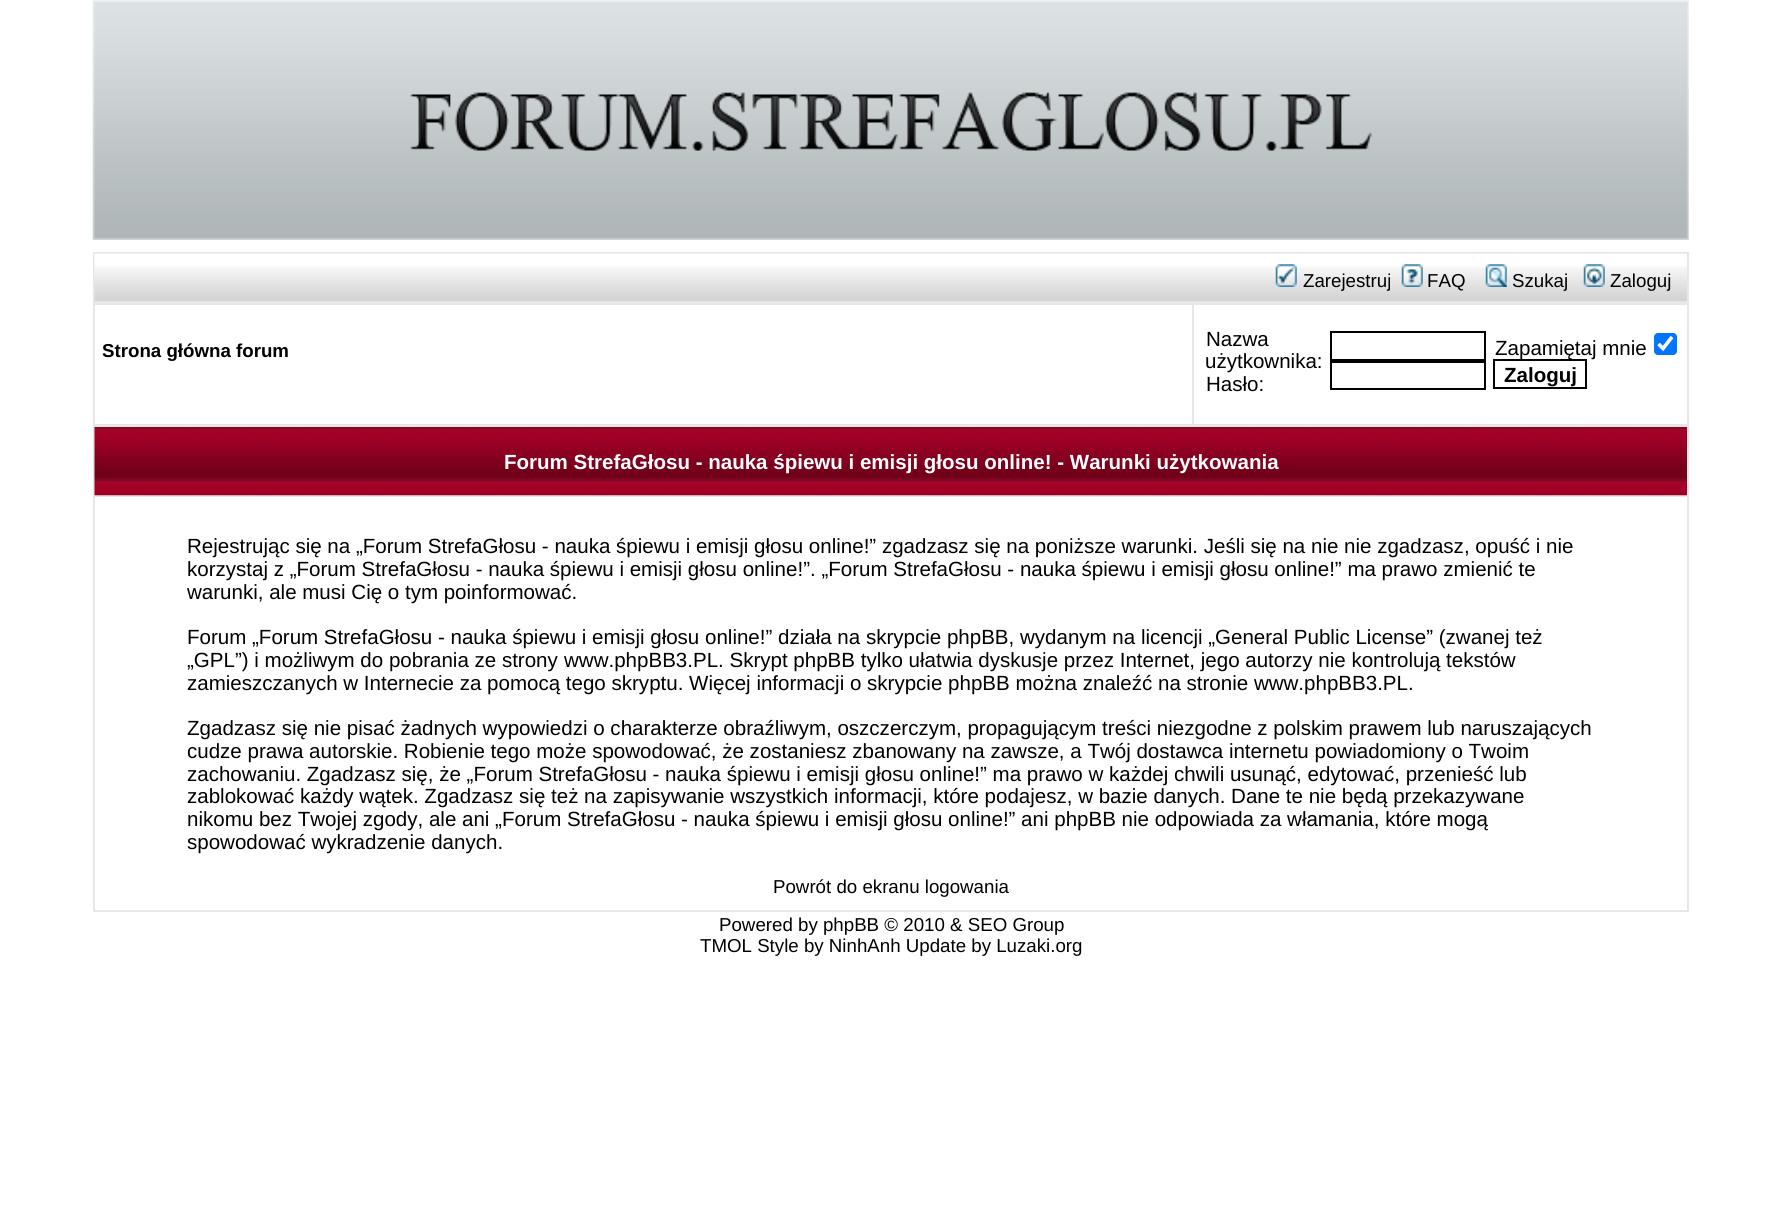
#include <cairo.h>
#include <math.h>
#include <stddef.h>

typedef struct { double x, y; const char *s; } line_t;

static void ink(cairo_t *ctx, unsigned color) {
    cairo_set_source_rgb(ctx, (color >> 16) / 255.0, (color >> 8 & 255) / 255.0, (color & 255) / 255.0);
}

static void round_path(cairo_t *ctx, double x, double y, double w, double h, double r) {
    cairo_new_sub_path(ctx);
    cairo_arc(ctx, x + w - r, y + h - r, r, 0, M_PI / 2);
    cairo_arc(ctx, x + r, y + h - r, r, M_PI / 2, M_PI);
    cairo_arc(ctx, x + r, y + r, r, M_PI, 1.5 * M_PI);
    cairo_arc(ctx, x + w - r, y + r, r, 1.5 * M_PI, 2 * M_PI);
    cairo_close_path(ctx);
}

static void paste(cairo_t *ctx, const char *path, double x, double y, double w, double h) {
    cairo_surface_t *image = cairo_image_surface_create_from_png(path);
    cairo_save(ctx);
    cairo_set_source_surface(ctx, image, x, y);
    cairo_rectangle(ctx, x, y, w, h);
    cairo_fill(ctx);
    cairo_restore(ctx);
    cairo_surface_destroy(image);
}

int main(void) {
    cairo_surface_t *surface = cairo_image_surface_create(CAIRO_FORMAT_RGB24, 1781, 1228);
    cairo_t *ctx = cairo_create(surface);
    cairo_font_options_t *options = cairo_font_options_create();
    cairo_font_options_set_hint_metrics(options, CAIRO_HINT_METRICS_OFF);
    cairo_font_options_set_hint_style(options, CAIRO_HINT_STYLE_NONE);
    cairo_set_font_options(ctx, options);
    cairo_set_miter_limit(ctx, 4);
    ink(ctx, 0xFFFFFF);
    cairo_paint(ctx);
    paste(ctx, "media/1.png", 92, 0, 1597, 240);
    ink(ctx, 0xE7E7E7);
    cairo_rectangle(ctx, 93, 252, 1596, 660);
    cairo_fill(ctx);
    paste(ctx, "media/2.png", 94, 253, 1593, 48);
    paste(ctx, "media/3.png", 1275, 264, 22, 23);
    cairo_select_font_face(ctx, "Liberation Sans", CAIRO_FONT_SLANT_NORMAL, CAIRO_FONT_WEIGHT_NORMAL);
    cairo_set_font_size(ctx, 18.7);
    ink(ctx, 0x000000);
    cairo_move_to(ctx, 1303, 287);
    cairo_show_text(ctx, "Zarejestruj");
    paste(ctx, "media/4.png", 1401, 264, 22, 23);
    cairo_move_to(ctx, 1427, 287);
    cairo_show_text(ctx, "FAQ");
    paste(ctx, "media/5.png", 1485, 264, 22, 23);
    cairo_move_to(ctx, 1512, 287);
    cairo_show_text(ctx, "Szukaj");
    paste(ctx, "media/6.png", 1583, 264, 22, 23);
    cairo_move_to(ctx, 1610, 287);
    cairo_show_text(ctx, "Zaloguj");
    ink(ctx, 0xFFFFFF);
    cairo_rectangle(ctx, 95, 305, 1097, 119);
    cairo_fill(ctx);
    cairo_select_font_face(ctx, "Liberation Sans", CAIRO_FONT_SLANT_NORMAL, CAIRO_FONT_WEIGHT_BOLD);
    ink(ctx, 0x000000);
    cairo_move_to(ctx, 102, 357);
    cairo_show_text(ctx, "Strona główna forum");
    ink(ctx, 0xFFFFFF);
    cairo_rectangle(ctx, 1194, 305, 493, 119);
    cairo_fill(ctx);
    cairo_select_font_face(ctx, "Liberation Sans", CAIRO_FONT_SLANT_NORMAL, CAIRO_FONT_WEIGHT_NORMAL);
    cairo_set_font_size(ctx, 20.53);
    ink(ctx, 0x000000);
    {
        static const line_t items[] = {
            {1206, 346, "Nazwa"},
            {1205, 368, "użytkownika:"},
            {1206, 391, "Hasło:"},
        };
        for (size_t i = 0; i < sizeof items / sizeof *items; i++) {
            cairo_move_to(ctx, items[i].x, items[i].y);
            cairo_show_text(ctx, items[i].s);
        }
    }
    cairo_rectangle(ctx, 1331, 332, 154, 28);
    cairo_stroke(ctx);
    cairo_rectangle(ctx, 1331, 362, 154, 27);
    cairo_stroke(ctx);
    cairo_move_to(ctx, 1495, 355);
    cairo_show_text(ctx, "Zapamiętaj mnie");
    ink(ctx, 0x0075FF);
    round_path(ctx, 1654, 333, 23, 22, 4);
    cairo_fill(ctx);
    cairo_new_path(ctx);
    cairo_move_to(ctx, 1658.5, 344);
    cairo_line_to(ctx, 1663, 348.5);
    cairo_line_to(ctx, 1672, 337);
    ink(ctx, 0xFFFFFF);
    cairo_set_line_width(ctx, 3.6);
    cairo_stroke(ctx);
    cairo_rectangle(ctx, 1494, 360, 92, 28);
    ink(ctx, 0x030303);
    cairo_set_line_width(ctx, 2);
    cairo_stroke(ctx);
    cairo_select_font_face(ctx, "Liberation Sans", CAIRO_FONT_SLANT_NORMAL, CAIRO_FONT_WEIGHT_BOLD);
    ink(ctx, 0x000000);
    cairo_move_to(ctx, 1504, 382);
    cairo_show_text(ctx, "Zaloguj");
    paste(ctx, "media/7.png", 94, 427, 1593, 69);
    ink(ctx, 0xFFFFFF);
    cairo_move_to(ctx, 504, 469);
    cairo_show_text(ctx, "Forum StrefaGłosu - nauka śpiewu i emisji głosu online! - Warunki użytkowania");
    cairo_rectangle(ctx, 95, 497, 1592, 413);
    cairo_fill(ctx);
    cairo_select_font_face(ctx, "Liberation Sans", CAIRO_FONT_SLANT_NORMAL, CAIRO_FONT_WEIGHT_NORMAL);
    ink(ctx, 0x000000);
    {
        static const line_t items[] = {
            {187, 553, "Rejestrując się na „Forum StrefaGłosu - nauka śpiewu i emisji głosu online!” zgadzasz się na poniższe warunki. Jeśli się na nie nie zgadzasz, opuść i nie"},
            {187, 576, "korzystaj z „Forum StrefaGłosu - nauka śpiewu i emisji głosu online!”. „Forum StrefaGłosu - nauka śpiewu i emisji głosu online!” ma prawo zmienić te"},
            {187, 599, "warunki, ale musi Cię o tym poinformować."},
            {187, 644, "Forum „Forum StrefaGłosu - nauka śpiewu i emisji głosu online!” działa na skrypcie phpBB, wydanym na licencji „General Public License” (zwanej też"},
            {187, 667, "„GPL”) i możliwym do pobrania ze strony"},
            {564, 667, "www.phpBB3.PL. Skrypt phpBB tylko ułatwia dyskusje przez Internet, jego autorzy nie kontrolują tekstów"},
            {187, 690, "zamieszczanych w Internecie za pomocą tego skryptu. Więcej informacji o skrypcie phpBB można znaleźć na stronie www.phpBB3.PL."},
            {187, 735, "Zgadzasz się nie pisać żadnych wypowiedzi o charakterze obraźliwym, oszczerczym, propagującym treści niezgodne z polskim prawem lub naruszających"},
            {187, 758, "cudze prawa autorskie. Robienie tego może spowodować, że zostaniesz zbanowany na zawsze, a Twój dostawca internetu powiadomiony o Twoim"},
            {187, 781, "zachowaniu. Zgadzasz się, że „Forum StrefaGłosu - nauka śpiewu i emisji głosu online!” ma prawo w każdej chwili usunąć, edytować, przenieść lub"},
            {187, 803, "zablokować każdy wątek. Zgadzasz się też na zapisywanie wszystkich informacji, które podajesz, w bazie danych. Dane te nie będą przekazywane"},
            {187, 826, "nikomu bez Twojej zgody, ale ani „Forum StrefaGłosu - nauka śpiewu i emisji głosu online!” ani phpBB nie odpowiada za włamania, które mogą"},
            {187, 849, "spowodować wykradzenie danych."},
        };
        for (size_t i = 0; i < sizeof items / sizeof *items; i++) {
            cairo_move_to(ctx, items[i].x, items[i].y);
            cairo_show_text(ctx, items[i].s);
        }
    }
    cairo_set_font_size(ctx, 18.7);
    {
        static const line_t items[] = {
            {773, 893, "Powrót do ekranu logowania"},
            {719, 931, "Powered by phpBB © 2010 & SEO Group"},
            {700, 952, "TMOL Style by NinhAnh Update by Luzaki.org"},
        };
        for (size_t i = 0; i < sizeof items / sizeof *items; i++) {
            cairo_move_to(ctx, items[i].x, items[i].y);
            cairo_show_text(ctx, items[i].s);
        }
    }
    cairo_surface_write_to_png(surface, "image.png");
    cairo_font_options_destroy(options);
    cairo_destroy(ctx);
    cairo_surface_destroy(surface);
    return 0;
}
